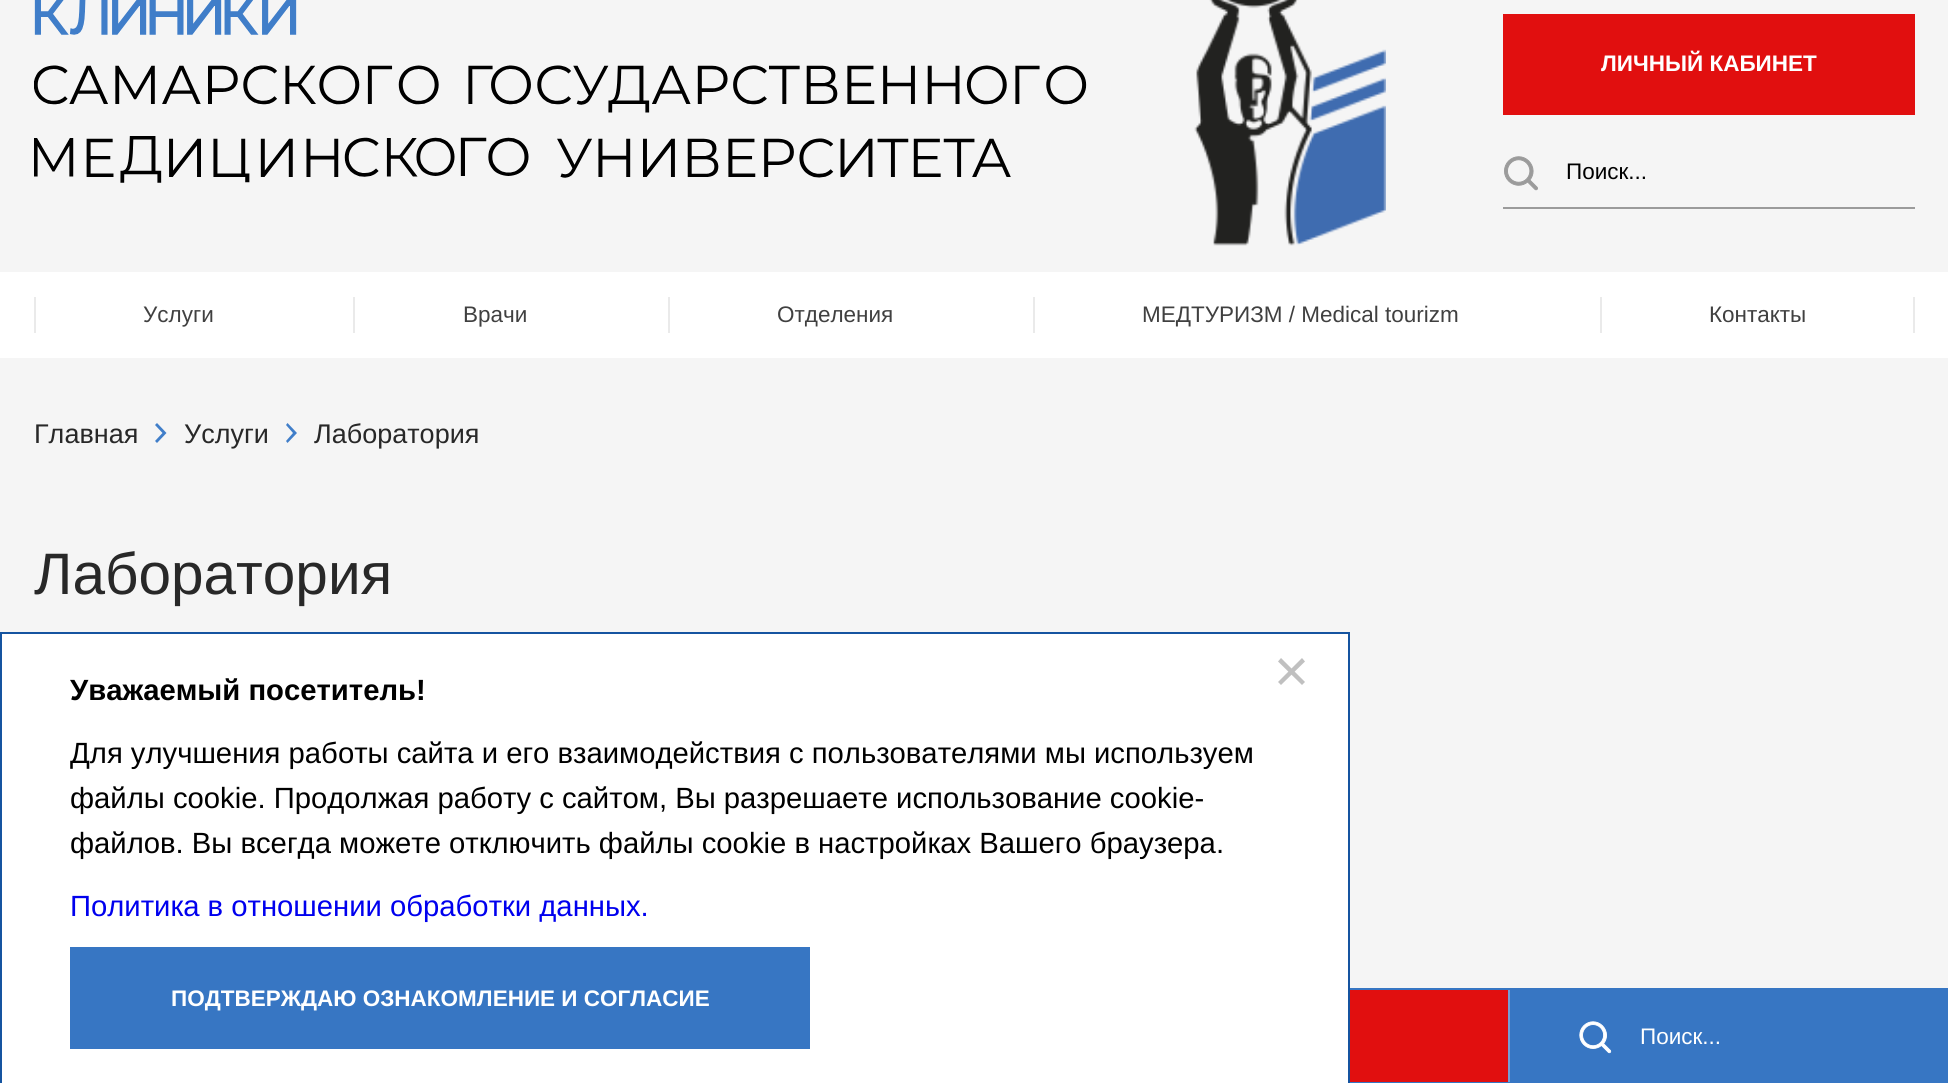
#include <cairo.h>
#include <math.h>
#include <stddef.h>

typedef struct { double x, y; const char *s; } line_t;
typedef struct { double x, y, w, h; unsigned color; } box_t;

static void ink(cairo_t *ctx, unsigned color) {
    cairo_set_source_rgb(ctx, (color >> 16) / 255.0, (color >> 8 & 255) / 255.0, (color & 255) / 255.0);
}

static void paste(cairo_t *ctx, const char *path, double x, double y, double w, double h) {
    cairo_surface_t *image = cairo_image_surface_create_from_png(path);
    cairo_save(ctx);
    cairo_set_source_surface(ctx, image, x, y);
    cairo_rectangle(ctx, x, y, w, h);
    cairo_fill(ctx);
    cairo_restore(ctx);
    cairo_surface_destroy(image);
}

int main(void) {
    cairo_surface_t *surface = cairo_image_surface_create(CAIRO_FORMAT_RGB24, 1948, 1083);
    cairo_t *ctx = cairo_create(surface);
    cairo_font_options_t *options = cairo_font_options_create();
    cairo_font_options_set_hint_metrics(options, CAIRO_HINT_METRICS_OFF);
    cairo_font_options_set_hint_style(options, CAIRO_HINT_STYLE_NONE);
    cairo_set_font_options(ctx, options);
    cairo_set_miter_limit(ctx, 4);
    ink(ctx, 0xF5F5F5);
    cairo_paint(ctx);
    paste(ctx, "media/1.png", 34, 0, 1053, 183);
    paste(ctx, "media/2.png", 1194, 0, 192, 246);
    ink(ctx, 0xE10F0F);
    cairo_rectangle(ctx, 1503, 14, 412, 101);
    cairo_fill(ctx);
    cairo_select_font_face(ctx, "Liberation Sans", CAIRO_FONT_SLANT_NORMAL, CAIRO_FONT_WEIGHT_BOLD);
    cairo_set_font_size(ctx, 22.5);
    ink(ctx, 0xFFFFFF);
    cairo_move_to(ctx, 1601, 71);
    cairo_show_text(ctx, "ЛИЧНЫЙ КАБИНЕТ");
    paste(ctx, "media/3.png", 1504, 156, 34, 35);
    ink(ctx, 0x9B9B9B);
    cairo_rectangle(ctx, 1503, 207, 412, 2);
    cairo_fill(ctx);
    cairo_select_font_face(ctx, "Liberation Sans", CAIRO_FONT_SLANT_NORMAL, CAIRO_FONT_WEIGHT_NORMAL);
    ink(ctx, 0x000000);
    cairo_move_to(ctx, 1566, 179);
    cairo_show_text(ctx, "Поиск...");
    {
        static const box_t items[] = {
            {0, 272, 1948, 86, 0xFFFFFF},
            {1913, 297, 2, 36, 0xEAEAEA},
            {34, 297, 2, 36, 0xEAEAEA},
        };
        for (size_t i = 0; i < sizeof items / sizeof *items; i++) {
            ink(ctx, items[i].color);
            cairo_rectangle(ctx, items[i].x, items[i].y, items[i].w, items[i].h);
            cairo_fill(ctx);
        }
    }
    ink(ctx, 0x404040);
    cairo_move_to(ctx, 143, 322);
    cairo_show_text(ctx, "Услуги");
    ink(ctx, 0xEAEAEA);
    cairo_rectangle(ctx, 353, 297, 2, 36);
    cairo_fill(ctx);
    ink(ctx, 0x404040);
    cairo_move_to(ctx, 463, 322);
    cairo_show_text(ctx, "Врачи");
    ink(ctx, 0xEAEAEA);
    cairo_rectangle(ctx, 668, 297, 2, 36);
    cairo_fill(ctx);
    ink(ctx, 0x404040);
    cairo_move_to(ctx, 777, 322);
    cairo_show_text(ctx, "Отделения");
    ink(ctx, 0xEAEAEA);
    cairo_rectangle(ctx, 1033, 297, 2, 36);
    cairo_fill(ctx);
    ink(ctx, 0x404040);
    cairo_move_to(ctx, 1142, 322);
    cairo_show_text(ctx, "МЕДТУРИЗМ / Medical tourizm");
    ink(ctx, 0xEAEAEA);
    cairo_rectangle(ctx, 1600, 297, 2, 36);
    cairo_fill(ctx);
    ink(ctx, 0x404040);
    cairo_move_to(ctx, 1709, 322);
    cairo_show_text(ctx, "Контакты");
    cairo_set_font_size(ctx, 27);
    ink(ctx, 0x282828);
    cairo_move_to(ctx, 34, 443);
    cairo_show_text(ctx, "Главная");
    ink(ctx, 0x407EC9);
    cairo_new_path(ctx);
    cairo_move_to(ctx, 157, 423);
    cairo_line_to(ctx, 155, 425);
    cairo_line_to(ctx, 162.5, 433);
    cairo_line_to(ctx, 155, 441);
    cairo_line_to(ctx, 157, 443);
    cairo_line_to(ctx, 166.5, 433);
    cairo_close_path(ctx);
    cairo_fill(ctx);
    ink(ctx, 0x282828);
    cairo_move_to(ctx, 184, 443);
    cairo_show_text(ctx, "Услуги");
    ink(ctx, 0x407EC9);
    cairo_new_path(ctx);
    cairo_move_to(ctx, 287.5, 423);
    cairo_line_to(ctx, 286, 425);
    cairo_line_to(ctx, 293, 433);
    cairo_line_to(ctx, 286, 441);
    cairo_line_to(ctx, 287.5, 443);
    cairo_line_to(ctx, 297, 433);
    cairo_close_path(ctx);
    cairo_fill(ctx);
    ink(ctx, 0x282828);
    cairo_move_to(ctx, 314, 443);
    cairo_show_text(ctx, "Лаборатория");
    cairo_set_font_size(ctx, 58.5);
    cairo_move_to(ctx, 34, 594);
    cairo_show_text(ctx, "Лаборатория");
    {
        static const box_t items[] = {
            {1350, 988, 598, 95, 0x3776C3},
            {1508, 990, 2, 92, 0x739FD5},
            {1350, 990, 158, 92, 0xE10F0F},
        };
        for (size_t i = 0; i < sizeof items / sizeof *items; i++) {
            ink(ctx, items[i].color);
            cairo_rectangle(ctx, items[i].x, items[i].y, items[i].w, items[i].h);
            cairo_fill(ctx);
        }
    }
    paste(ctx, "media/4.png", 1579, 1021, 33, 33);
    cairo_set_font_size(ctx, 22.5);
    ink(ctx, 0xFFFFFF);
    cairo_move_to(ctx, 1640, 1044);
    cairo_show_text(ctx, "Поиск...");
    cairo_rectangle(ctx, 1, 633, 1348, 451);
    cairo_fill_preserve(ctx);
    ink(ctx, 0x1554A0);
    cairo_stroke(ctx);
    ink(ctx, 0xC0C0C0);
    cairo_new_path(ctx);
    cairo_move_to(ctx, 1302, 658);
    cairo_line_to(ctx, 1305, 661.5);
    cairo_line_to(ctx, 1281, 685);
    cairo_line_to(ctx, 1278, 682);
    cairo_close_path(ctx);
    cairo_fill(ctx);
    cairo_new_path(ctx);
    cairo_move_to(ctx, 1278, 661.5);
    cairo_line_to(ctx, 1281, 658);
    cairo_line_to(ctx, 1305, 682);
    cairo_line_to(ctx, 1302, 685);
    cairo_close_path(ctx);
    cairo_fill(ctx);
    cairo_select_font_face(ctx, "Liberation Sans", CAIRO_FONT_SLANT_NORMAL, CAIRO_FONT_WEIGHT_BOLD);
    cairo_set_font_size(ctx, 29.25);
    ink(ctx, 0x000000);
    cairo_move_to(ctx, 70, 700);
    cairo_show_text(ctx, "Уважаемый посетитель!");
    cairo_select_font_face(ctx, "Liberation Sans", CAIRO_FONT_SLANT_NORMAL, CAIRO_FONT_WEIGHT_NORMAL);
    {
        static const line_t items[] = {
            {70, 763, "Для улучшения работы сайта и его взаимодействия с пользователями мы используем"},
            {70, 808, "файлы cookie. Продолжая работу с сайтом, Вы разрешаете использование cookie-"},
            {70, 853, "файлов. Вы всегда можете отключить файлы cookie в настройках Вашего браузера."},
        };
        for (size_t i = 0; i < sizeof items / sizeof *items; i++) {
            cairo_move_to(ctx, items[i].x, items[i].y);
            cairo_show_text(ctx, items[i].s);
        }
    }
    ink(ctx, 0x0000EE);
    cairo_move_to(ctx, 70, 916);
    cairo_show_text(ctx, "Политика в отношении обработки данных.");
    ink(ctx, 0x3776C3);
    cairo_rectangle(ctx, 70, 947, 740, 102);
    cairo_fill(ctx);
    cairo_select_font_face(ctx, "Liberation Sans", CAIRO_FONT_SLANT_NORMAL, CAIRO_FONT_WEIGHT_BOLD);
    cairo_set_font_size(ctx, 22.5);
    ink(ctx, 0xFFFFFF);
    cairo_move_to(ctx, 171, 1006);
    cairo_show_text(ctx, "ПОДТВЕРЖДАЮ ОЗНАКОМЛЕНИЕ И СОГЛАСИЕ");
    cairo_surface_write_to_png(surface, "image.png");
    cairo_font_options_destroy(options);
    cairo_destroy(ctx);
    cairo_surface_destroy(surface);
    return 0;
}
